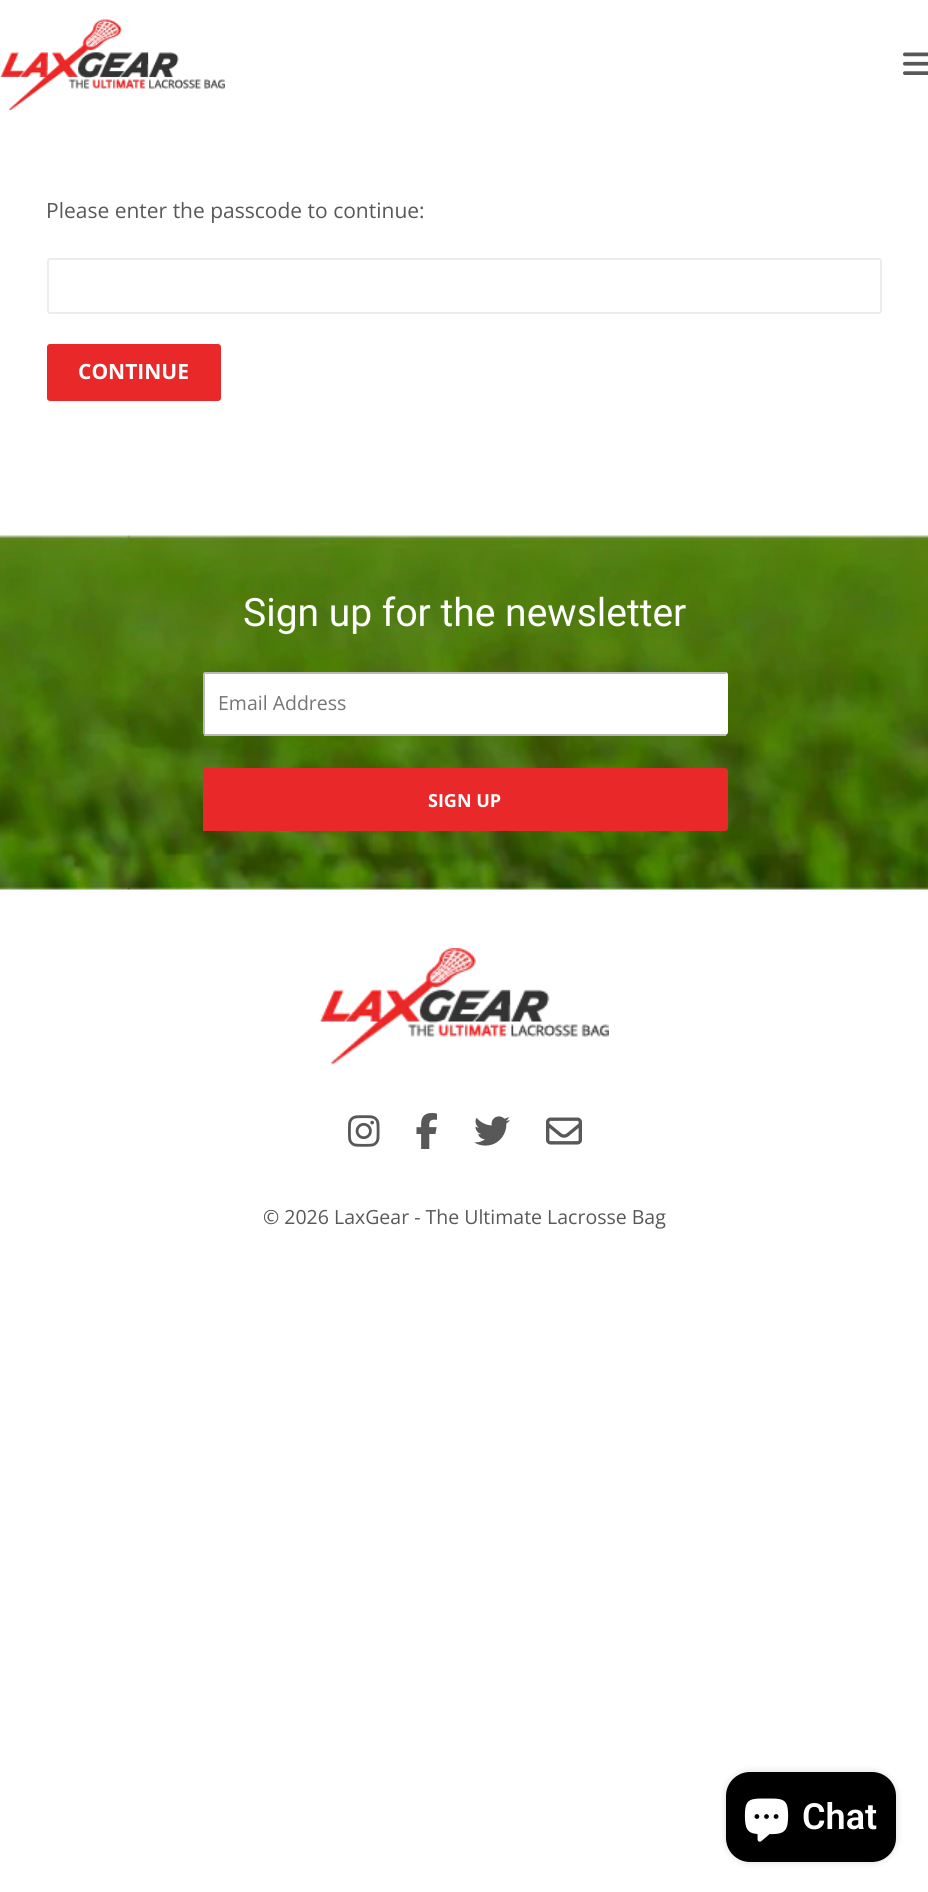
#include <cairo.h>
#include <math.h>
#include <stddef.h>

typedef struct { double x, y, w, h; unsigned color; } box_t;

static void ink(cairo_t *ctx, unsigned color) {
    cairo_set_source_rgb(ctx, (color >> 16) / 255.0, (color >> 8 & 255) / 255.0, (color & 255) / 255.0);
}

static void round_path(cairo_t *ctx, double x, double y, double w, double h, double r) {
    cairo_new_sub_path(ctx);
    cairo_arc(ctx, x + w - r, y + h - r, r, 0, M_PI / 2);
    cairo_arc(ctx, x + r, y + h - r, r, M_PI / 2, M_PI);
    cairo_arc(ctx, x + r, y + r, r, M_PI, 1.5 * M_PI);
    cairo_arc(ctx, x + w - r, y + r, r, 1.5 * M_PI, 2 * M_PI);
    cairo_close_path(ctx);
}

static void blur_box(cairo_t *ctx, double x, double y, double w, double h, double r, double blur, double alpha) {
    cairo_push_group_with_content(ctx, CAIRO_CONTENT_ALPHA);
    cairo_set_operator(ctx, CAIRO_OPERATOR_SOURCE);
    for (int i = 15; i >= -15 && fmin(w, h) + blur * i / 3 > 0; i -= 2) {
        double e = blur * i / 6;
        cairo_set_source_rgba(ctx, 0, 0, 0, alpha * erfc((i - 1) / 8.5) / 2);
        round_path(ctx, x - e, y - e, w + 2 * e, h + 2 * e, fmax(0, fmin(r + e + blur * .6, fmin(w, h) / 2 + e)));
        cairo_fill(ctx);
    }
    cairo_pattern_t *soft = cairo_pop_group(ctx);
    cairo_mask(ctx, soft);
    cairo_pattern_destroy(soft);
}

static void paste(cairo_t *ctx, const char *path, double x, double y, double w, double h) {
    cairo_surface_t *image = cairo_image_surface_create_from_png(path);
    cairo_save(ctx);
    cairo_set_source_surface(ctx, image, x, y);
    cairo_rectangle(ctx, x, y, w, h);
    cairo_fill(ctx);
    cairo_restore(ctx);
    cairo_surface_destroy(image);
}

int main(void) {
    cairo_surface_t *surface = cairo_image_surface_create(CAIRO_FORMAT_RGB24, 928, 1892);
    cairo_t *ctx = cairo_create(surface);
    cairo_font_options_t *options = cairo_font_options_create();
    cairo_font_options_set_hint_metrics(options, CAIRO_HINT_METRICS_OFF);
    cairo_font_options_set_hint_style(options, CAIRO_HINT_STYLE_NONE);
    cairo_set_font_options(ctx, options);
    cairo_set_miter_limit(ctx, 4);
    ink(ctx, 0xFFFFFF);
    cairo_paint(ctx);
    paste(ctx, "media/1.png", 0, 19, 225, 92);
    paste(ctx, "media/2.png", 903, 52, 25, 23);
    cairo_select_font_face(ctx, "Open Sans", CAIRO_FONT_SLANT_NORMAL, CAIRO_FONT_WEIGHT_NORMAL);
    cairo_set_font_size(ctx, 21);
    ink(ctx, 0x585858);
    cairo_move_to(ctx, 46, 218);
    cairo_show_text(ctx, "Please enter the passcode to continue:");
    round_path(ctx, 48, 259, 833, 54, 2);
    ink(ctx, 0xECECEC);
    cairo_stroke(ctx);
    ink(ctx, 0xE92829);
    round_path(ctx, 47, 344, 174, 57, 3);
    cairo_fill(ctx);
    cairo_select_font_face(ctx, "Open Sans", CAIRO_FONT_SLANT_NORMAL, CAIRO_FONT_WEIGHT_BOLD);
    ink(ctx, 0xFFFFFF);
    cairo_move_to(ctx, 78, 379);
    cairo_show_text(ctx, "CONTINUE");
    paste(ctx, "media/3.png", 0, 535, 928, 355);
    cairo_select_font_face(ctx, "Roboto", CAIRO_FONT_SLANT_NORMAL, CAIRO_FONT_WEIGHT_NORMAL);
    cairo_set_font_size(ctx, 39);
    cairo_move_to(ctx, 243, 626);
    cairo_show_text(ctx, "Sign up for the newsletter");
    round_path(ctx, 203, 672, 525, 63, 3);
    cairo_fill(ctx);
    {
        static const box_t items[] = {
            {204, 672, 522, 2, 0xB9B9B9},
            {204, 734, 522, 2, 0xB9B9B9},
            {203, 674, 2, 60, 0xB9B9B9},
        };
        for (size_t i = 0; i < sizeof items / sizeof *items; i++) {
            ink(ctx, items[i].color);
            cairo_rectangle(ctx, items[i].x, items[i].y, items[i].w, items[i].h);
            cairo_fill(ctx);
        }
    }
    cairo_select_font_face(ctx, "Open Sans", CAIRO_FONT_SLANT_NORMAL, CAIRO_FONT_WEIGHT_NORMAL);
    cairo_set_font_size(ctx, 19.5);
    ink(ctx, 0x757575);
    cairo_move_to(ctx, 218, 710);
    cairo_show_text(ctx, "Email Address");
    ink(ctx, 0xE92829);
    cairo_new_path(ctx);
    cairo_move_to(ctx, 204, 769);
    cairo_line_to(ctx, 725, 769);
    cairo_curve_to(ctx, 726, 769, 727, 770, 727, 771);
    cairo_line_to(ctx, 727, 828);
    cairo_curve_to(ctx, 727, 829, 726, 830, 725, 830);
    cairo_line_to(ctx, 204, 830);
    cairo_close_path(ctx);
    cairo_fill_preserve(ctx);
    cairo_stroke(ctx);
    cairo_select_font_face(ctx, "Open Sans", CAIRO_FONT_SLANT_NORMAL, CAIRO_FONT_WEIGHT_BOLD);
    cairo_set_font_size(ctx, 18);
    ink(ctx, 0xFFFFFF);
    cairo_move_to(ctx, 428, 807);
    cairo_show_text(ctx, "SIGN UP");
    paste(ctx, "media/4.png", 319, 948, 290, 117);
    paste(ctx, "media/5.png", 348, 1115, 32, 32);
    paste(ctx, "media/6.png", 416, 1113, 21, 36);
    paste(ctx, "media/7.png", 474, 1116, 36, 30);
    paste(ctx, "media/8.png", 546, 1117, 36, 28);
    cairo_select_font_face(ctx, "Open Sans", CAIRO_FONT_SLANT_NORMAL, CAIRO_FONT_WEIGHT_NORMAL);
    cairo_set_font_size(ctx, 19.5);
    ink(ctx, 0x585858);
    cairo_move_to(ctx, 263, 1224);
    cairo_show_text(ctx, "© 2026 LaxGear - The Ultimate Lacrosse Bag");
    ink(ctx, 0x000000);
    blur_box(ctx, 726, 1772, 170, 90, 24, 4, 0.15);
    ink(ctx, 0x000000);
    round_path(ctx, 726, 1772, 170, 90, 24);
    cairo_fill(ctx);
    paste(ctx, "media/9.png", 744, 1798, 45, 44);
    cairo_select_font_face(ctx, "Roboto SemiBold", CAIRO_FONT_SLANT_NORMAL, CAIRO_FONT_WEIGHT_NORMAL);
    cairo_set_font_size(ctx, 36);
    ink(ctx, 0xFFFFFF);
    cairo_move_to(ctx, 802, 1829);
    cairo_show_text(ctx, "Chat");
    cairo_surface_write_to_png(surface, "image.png");
    cairo_font_options_destroy(options);
    cairo_destroy(ctx);
    cairo_surface_destroy(surface);
    return 0;
}
